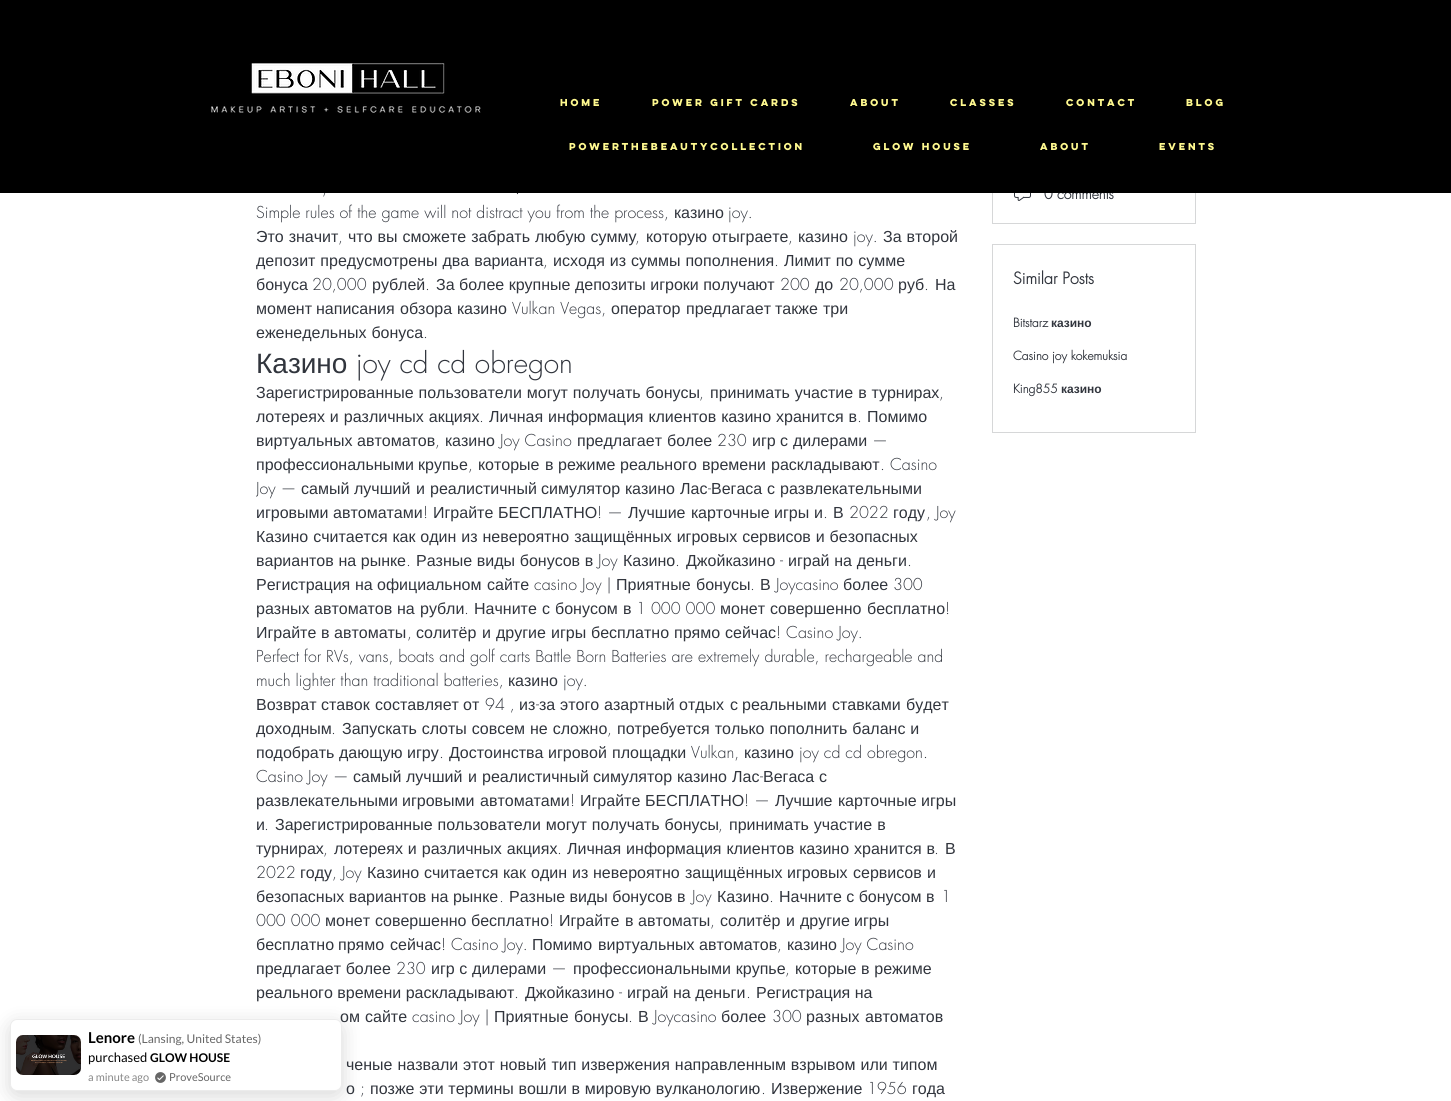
#include <cairo.h>
#include <math.h>
#include <stddef.h>

typedef struct { double x, y; const char *s; } line_t;

static void ink(cairo_t *ctx, unsigned color) {
    cairo_set_source_rgb(ctx, (color >> 16) / 255.0, (color >> 8 & 255) / 255.0, (color & 255) / 255.0);
}

static void write_spaced(cairo_t *ctx, double x, double y, const char *s, double letter, double word) {
    cairo_move_to(ctx, x, y);
    while (*s) {
        char ch[5] = {0};
        int n = 0;
        do ch[n++] = *s++; while ((*s & 0xC0) == 0x80);
        cairo_show_text(ctx, ch);
        cairo_rel_move_to(ctx, letter + word * (*ch == ' '), 0);
    }
}

static void round_path(cairo_t *ctx, double x, double y, double w, double h, double r) {
    cairo_new_sub_path(ctx);
    cairo_arc(ctx, x + w - r, y + h - r, r, 0, M_PI / 2);
    cairo_arc(ctx, x + r, y + h - r, r, M_PI / 2, M_PI);
    cairo_arc(ctx, x + r, y + r, r, M_PI, 1.5 * M_PI);
    cairo_arc(ctx, x + w - r, y + r, r, 1.5 * M_PI, 2 * M_PI);
    cairo_close_path(ctx);
}

static void blur_box(cairo_t *ctx, double x, double y, double w, double h, double r, double blur, double alpha) {
    cairo_push_group_with_content(ctx, CAIRO_CONTENT_ALPHA);
    cairo_set_operator(ctx, CAIRO_OPERATOR_SOURCE);
    for (int i = 15; i >= -15 && fmin(w, h) + blur * i / 3 > 0; i -= 2) {
        double e = blur * i / 6;
        cairo_set_source_rgba(ctx, 0, 0, 0, alpha * erfc((i - 1) / 8.5) / 2);
        round_path(ctx, x - e, y - e, w + 2 * e, h + 2 * e, fmax(0, fmin(r + e + blur * .6, fmin(w, h) / 2 + e)));
        cairo_fill(ctx);
    }
    cairo_pattern_t *soft = cairo_pop_group(ctx);
    cairo_mask(ctx, soft);
    cairo_pattern_destroy(soft);
}

static void paste(cairo_t *ctx, const char *path, double x, double y, double w, double h) {
    cairo_surface_t *image = cairo_image_surface_create_from_png(path);
    cairo_save(ctx);
    cairo_set_source_surface(ctx, image, x, y);
    cairo_rectangle(ctx, x, y, w, h);
    cairo_fill(ctx);
    cairo_restore(ctx);
    cairo_surface_destroy(image);
}

int main(void) {
    cairo_surface_t *surface = cairo_image_surface_create(CAIRO_FORMAT_RGB24, 1451, 1101);
    cairo_t *ctx = cairo_create(surface);
    cairo_font_options_t *options = cairo_font_options_create();
    cairo_font_options_set_hint_metrics(options, CAIRO_HINT_METRICS_OFF);
    cairo_font_options_set_hint_style(options, CAIRO_HINT_STYLE_NONE);
    cairo_set_font_options(ctx, options);
    cairo_set_miter_limit(ctx, 4);
    ink(ctx, 0xFFFFFF);
    cairo_paint(ctx);
    ink(ctx, 0x000000);
    blur_box(ctx, 10, 1024, 332, 72, 7, 10, 0.15);
    cairo_select_font_face(ctx, "Liberation Sans", CAIRO_FONT_SLANT_NORMAL, CAIRO_FONT_WEIGHT_NORMAL);
    cairo_set_font_size(ctx, 16);
    ink(ctx, 0x31353D);
    cairo_move_to(ctx, 340, 1022);
    cairo_show_text(ctx, "ом");
    ink(ctx, 0xFFFFFF);
    round_path(ctx, 10.5, 1019.5, 331, 71, 6.5);
    cairo_fill_preserve(ctx);
    ink(ctx, 0xECECEC);
    cairo_set_line_width(ctx, 1);
    cairo_stroke(ctx);
    paste(ctx, "media/1.png", 16, 1035, 65, 40);
    cairo_select_font_face(ctx, "Lato", CAIRO_FONT_SLANT_NORMAL, CAIRO_FONT_WEIGHT_BOLD);
    cairo_set_font_size(ctx, 15);
    ink(ctx, 0x000000);
    cairo_move_to(ctx, 88, 1043);
    cairo_show_text(ctx, "Lenore");
    cairo_select_font_face(ctx, "Lato", CAIRO_FONT_SLANT_NORMAL, CAIRO_FONT_WEIGHT_NORMAL);
    cairo_set_font_size(ctx, 12);
    ink(ctx, 0x666666);
    cairo_move_to(ctx, 138, 1043);
    cairo_show_text(ctx, "(Lansing, United States)");
    cairo_set_font_size(ctx, 13);
    ink(ctx, 0x000000);
    cairo_move_to(ctx, 88, 1062);
    cairo_show_text(ctx, "purchased");
    cairo_select_font_face(ctx, "Lato", CAIRO_FONT_SLANT_NORMAL, CAIRO_FONT_WEIGHT_BOLD);
    cairo_set_font_size(ctx, 12);
    cairo_move_to(ctx, 150, 1062);
    cairo_show_text(ctx, "GLOW HOUSE");
    cairo_select_font_face(ctx, "Lato", CAIRO_FONT_SLANT_NORMAL, CAIRO_FONT_WEIGHT_NORMAL);
    cairo_set_font_size(ctx, 11);
    ink(ctx, 0x888888);
    cairo_move_to(ctx, 88, 1081);
    cairo_show_text(ctx, "a minute ago");
    paste(ctx, "media/2.png", 155, 1072, 11, 11);
    ink(ctx, 0x666666);
    cairo_move_to(ctx, 169, 1081);
    cairo_show_text(ctx, "ProveSource");
    cairo_select_font_face(ctx, "futura Light", CAIRO_FONT_SLANT_NORMAL, CAIRO_FONT_WEIGHT_NORMAL);
    cairo_set_font_size(ctx, 16);
    ink(ctx, 0x31353D);
    cairo_move_to(ctx, 322, 194);
    cairo_show_text(ctx, ",");
    cairo_move_to(ctx, 515, 194);
    cairo_show_text(ctx, ".");
    cairo_rectangle(ctx, 992.5, 124.5, 203, 99);
    ink(ctx, 0xD6D7D8);
    cairo_stroke(ctx);
    cairo_select_font_face(ctx, "futura", CAIRO_FONT_SLANT_NORMAL, CAIRO_FONT_WEIGHT_BOLD);
    cairo_set_font_size(ctx, 14);
    ink(ctx, 0x31353D);
    cairo_move_to(ctx, 1044, 199);
    cairo_show_text(ctx, "0 comments");
    ink(ctx, 0x000000);
    cairo_rectangle(ctx, 0, 0, 1451, 193);
    cairo_fill(ctx);
    paste(ctx, "media/3.png", 210, 63, 271, 50);
    cairo_select_font_face(ctx, "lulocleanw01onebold", CAIRO_FONT_SLANT_NORMAL, CAIRO_FONT_WEIGHT_BOLD);
    cairo_set_font_size(ctx, 9);
    ink(ctx, 0xFFF98F);
    {
        static const line_t items[] = {
            {560, 106, "HOME"},
            {652, 106, "Power Gift Cards"},
            {850, 106, "ABOUT"},
            {950, 106, "CLASSES"},
            {1066, 106, "CONTACT"},
            {1186, 106, "BLOG"},
            {569, 150, "PowerTheBeautyCollection"},
            {873, 150, "Glow House"},
            {1040, 150, "About"},
            {1159, 150, "Events"},
        };
        for (size_t i = 0; i < sizeof items / sizeof *items; i++) {
            write_spaced(ctx, items[i].x, items[i].y, items[i].s, 0.9, 0);
        }
    }
    cairo_select_font_face(ctx, "futura Light", CAIRO_FONT_SLANT_NORMAL, CAIRO_FONT_WEIGHT_NORMAL);
    cairo_set_font_size(ctx, 16);
    ink(ctx, 0x31353D);
    cairo_move_to(ctx, 256, 218);
    cairo_show_text(ctx, "Simple rules of the game will not distract you from the process,");
    cairo_select_font_face(ctx, "Liberation Sans", CAIRO_FONT_SLANT_NORMAL, CAIRO_FONT_WEIGHT_NORMAL);
    cairo_move_to(ctx, 674, 218);
    cairo_show_text(ctx, "казино");
    cairo_select_font_face(ctx, "futura Light", CAIRO_FONT_SLANT_NORMAL, CAIRO_FONT_WEIGHT_NORMAL);
    cairo_move_to(ctx, 728, 218);
    cairo_show_text(ctx, "joy.");
    cairo_select_font_face(ctx, "Liberation Sans", CAIRO_FONT_SLANT_NORMAL, CAIRO_FONT_WEIGHT_NORMAL);
    write_spaced(ctx, 256, 242, "Это значит", 0, 0.5);
    cairo_select_font_face(ctx, "futura Light", CAIRO_FONT_SLANT_NORMAL, CAIRO_FONT_WEIGHT_NORMAL);
    cairo_move_to(ctx, 338, 242);
    cairo_show_text(ctx, ",");
    cairo_select_font_face(ctx, "Liberation Sans", CAIRO_FONT_SLANT_NORMAL, CAIRO_FONT_WEIGHT_NORMAL);
    write_spaced(ctx, 348, 242, "что вы сможете забрать любую сумму", 0, 0.5);
    cairo_select_font_face(ctx, "futura Light", CAIRO_FONT_SLANT_NORMAL, CAIRO_FONT_WEIGHT_NORMAL);
    cairo_move_to(ctx, 635, 242);
    cairo_show_text(ctx, ",");
    cairo_select_font_face(ctx, "Liberation Sans", CAIRO_FONT_SLANT_NORMAL, CAIRO_FONT_WEIGHT_NORMAL);
    write_spaced(ctx, 646, 242, "которую отыграете", 0, 0.5);
    cairo_select_font_face(ctx, "futura Light", CAIRO_FONT_SLANT_NORMAL, CAIRO_FONT_WEIGHT_NORMAL);
    cairo_move_to(ctx, 788, 242);
    cairo_show_text(ctx, ",");
    cairo_select_font_face(ctx, "Liberation Sans", CAIRO_FONT_SLANT_NORMAL, CAIRO_FONT_WEIGHT_NORMAL);
    cairo_move_to(ctx, 798, 242);
    cairo_show_text(ctx, "казино");
    cairo_select_font_face(ctx, "futura Light", CAIRO_FONT_SLANT_NORMAL, CAIRO_FONT_WEIGHT_NORMAL);
    cairo_move_to(ctx, 853, 242);
    cairo_show_text(ctx, "joy.");
    cairo_select_font_face(ctx, "Liberation Sans", CAIRO_FONT_SLANT_NORMAL, CAIRO_FONT_WEIGHT_NORMAL);
    write_spaced(ctx, 883, 242, "За второй", 0, 0.5);
    cairo_save(ctx);
    cairo_rectangle(ctx, 256, 0, 704, 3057);
    cairo_clip(ctx);
    write_spaced(ctx, 256, 266, "депозит предусмотрены два варианта", 0, 0.5);
    cairo_restore(ctx);
    cairo_select_font_face(ctx, "futura Light", CAIRO_FONT_SLANT_NORMAL, CAIRO_FONT_WEIGHT_NORMAL);
    cairo_move_to(ctx, 543, 266);
    cairo_show_text(ctx, ",");
    cairo_select_font_face(ctx, "Liberation Sans", CAIRO_FONT_SLANT_NORMAL, CAIRO_FONT_WEIGHT_NORMAL);
    write_spaced(ctx, 553, 266, "исходя из суммы пополнения", 0, 0.5);
    cairo_select_font_face(ctx, "futura Light", CAIRO_FONT_SLANT_NORMAL, CAIRO_FONT_WEIGHT_NORMAL);
    cairo_move_to(ctx, 774, 266);
    cairo_show_text(ctx, ".");
    cairo_select_font_face(ctx, "Liberation Sans", CAIRO_FONT_SLANT_NORMAL, CAIRO_FONT_WEIGHT_NORMAL);
    write_spaced(ctx, 784, 266, "Лимит по сумме", 0, 0.5);
    cairo_move_to(ctx, 256, 290);
    cairo_show_text(ctx, "бонуса");
    cairo_select_font_face(ctx, "futura Light", CAIRO_FONT_SLANT_NORMAL, CAIRO_FONT_WEIGHT_NORMAL);
    cairo_move_to(ctx, 312, 290);
    cairo_show_text(ctx, "20,000");
    cairo_select_font_face(ctx, "Liberation Sans", CAIRO_FONT_SLANT_NORMAL, CAIRO_FONT_WEIGHT_NORMAL);
    cairo_move_to(ctx, 372, 290);
    cairo_show_text(ctx, "рублей");
    cairo_select_font_face(ctx, "futura Light", CAIRO_FONT_SLANT_NORMAL, CAIRO_FONT_WEIGHT_NORMAL);
    cairo_move_to(ctx, 425, 290);
    cairo_show_text(ctx, ".");
    cairo_select_font_face(ctx, "Liberation Sans", CAIRO_FONT_SLANT_NORMAL, CAIRO_FONT_WEIGHT_NORMAL);
    cairo_move_to(ctx, 436, 290);
    cairo_show_text(ctx, "За более крупные депозиты игроки получают");
    cairo_select_font_face(ctx, "futura Light", CAIRO_FONT_SLANT_NORMAL, CAIRO_FONT_WEIGHT_NORMAL);
    cairo_move_to(ctx, 780, 290);
    cairo_show_text(ctx, "200");
    cairo_select_font_face(ctx, "Liberation Sans", CAIRO_FONT_SLANT_NORMAL, CAIRO_FONT_WEIGHT_NORMAL);
    cairo_move_to(ctx, 815, 290);
    cairo_show_text(ctx, "до");
    cairo_select_font_face(ctx, "futura Light", CAIRO_FONT_SLANT_NORMAL, CAIRO_FONT_WEIGHT_NORMAL);
    cairo_move_to(ctx, 839, 290);
    cairo_show_text(ctx, "20,000");
    cairo_select_font_face(ctx, "Liberation Sans", CAIRO_FONT_SLANT_NORMAL, CAIRO_FONT_WEIGHT_NORMAL);
    cairo_move_to(ctx, 898, 290);
    cairo_show_text(ctx, "руб");
    cairo_select_font_face(ctx, "futura Light", CAIRO_FONT_SLANT_NORMAL, CAIRO_FONT_WEIGHT_NORMAL);
    cairo_move_to(ctx, 924, 290);
    cairo_show_text(ctx, ".");
    cairo_select_font_face(ctx, "Liberation Sans", CAIRO_FONT_SLANT_NORMAL, CAIRO_FONT_WEIGHT_NORMAL);
    {
        static const line_t items[] = {
            {935, 290, "На"},
            {256, 314, "момент"},
            {316, 314, "написания"},
            {400, 314, "обзора"},
            {457, 314, "казино"},
        };
        for (size_t i = 0; i < sizeof items / sizeof *items; i++) {
            cairo_move_to(ctx, items[i].x, items[i].y);
            cairo_show_text(ctx, items[i].s);
        }
    }
    cairo_select_font_face(ctx, "futura Light", CAIRO_FONT_SLANT_NORMAL, CAIRO_FONT_WEIGHT_NORMAL);
    cairo_move_to(ctx, 512, 314);
    cairo_show_text(ctx, "Vulkan Vegas,");
    cairo_select_font_face(ctx, "Liberation Sans", CAIRO_FONT_SLANT_NORMAL, CAIRO_FONT_WEIGHT_NORMAL);
    {
        static const line_t items[] = {
            {611, 314, "оператор"},
            {686, 314, "предлагает"},
            {775, 314, "также"},
            {823, 314, "три"},
        };
        for (size_t i = 0; i < sizeof items / sizeof *items; i++) {
            cairo_move_to(ctx, items[i].x, items[i].y);
            cairo_show_text(ctx, items[i].s);
        }
    }
    write_spaced(ctx, 256, 338, "еженедельных бонуса", 0, 0.5);
    cairo_select_font_face(ctx, "futura Light", CAIRO_FONT_SLANT_NORMAL, CAIRO_FONT_WEIGHT_NORMAL);
    cairo_move_to(ctx, 423, 338);
    cairo_show_text(ctx, ".");
    cairo_select_font_face(ctx, "Liberation Sans", CAIRO_FONT_SLANT_NORMAL, CAIRO_FONT_WEIGHT_NORMAL);
    cairo_set_font_size(ctx, 28);
    cairo_move_to(ctx, 256, 373);
    cairo_show_text(ctx, "Казино");
    cairo_select_font_face(ctx, "futura Light", CAIRO_FONT_SLANT_NORMAL, CAIRO_FONT_WEIGHT_NORMAL);
    cairo_move_to(ctx, 356, 373);
    cairo_show_text(ctx, "joy cd cd obregon");
    cairo_select_font_face(ctx, "Liberation Sans", CAIRO_FONT_SLANT_NORMAL, CAIRO_FONT_WEIGHT_NORMAL);
    cairo_set_font_size(ctx, 16);
    write_spaced(ctx, 256, 398, "Зарегистрированные пользователи могут получать бонусы", 0, 0.5);
    cairo_select_font_face(ctx, "futura Light", CAIRO_FONT_SLANT_NORMAL, CAIRO_FONT_WEIGHT_NORMAL);
    cairo_move_to(ctx, 699, 398);
    cairo_show_text(ctx, ",");
    cairo_select_font_face(ctx, "Liberation Sans", CAIRO_FONT_SLANT_NORMAL, CAIRO_FONT_WEIGHT_NORMAL);
    write_spaced(ctx, 710, 398, "принимать участие в турнирах", 0, 0.5);
    cairo_select_font_face(ctx, "futura Light", CAIRO_FONT_SLANT_NORMAL, CAIRO_FONT_WEIGHT_NORMAL);
    cairo_move_to(ctx, 939, 398);
    cairo_show_text(ctx, ",");
    cairo_select_font_face(ctx, "Liberation Sans", CAIRO_FONT_SLANT_NORMAL, CAIRO_FONT_WEIGHT_NORMAL);
    write_spaced(ctx, 256, 422, "лотереях и различных акциях", 0, 0.5);
    cairo_select_font_face(ctx, "futura Light", CAIRO_FONT_SLANT_NORMAL, CAIRO_FONT_WEIGHT_NORMAL);
    cairo_move_to(ctx, 479, 422);
    cairo_show_text(ctx, ".");
    cairo_select_font_face(ctx, "Liberation Sans", CAIRO_FONT_SLANT_NORMAL, CAIRO_FONT_WEIGHT_NORMAL);
    write_spaced(ctx, 489, 422, "Личная информация клиентов казино хранится в", 0, 0.5);
    cairo_select_font_face(ctx, "futura Light", CAIRO_FONT_SLANT_NORMAL, CAIRO_FONT_WEIGHT_NORMAL);
    cairo_move_to(ctx, 857, 422);
    cairo_show_text(ctx, ".");
    cairo_select_font_face(ctx, "Liberation Sans", CAIRO_FONT_SLANT_NORMAL, CAIRO_FONT_WEIGHT_NORMAL);
    {
        static const line_t items[] = {
            {867, 422, "Помимо"},
            {256, 446, "виртуальных"},
            {357, 446, "автоматов"},
            {445, 446, "казино"},
        };
        for (size_t i = 0; i < sizeof items / sizeof *items; i++) {
            cairo_move_to(ctx, items[i].x, items[i].y);
            cairo_show_text(ctx, items[i].s);
        }
    }
    cairo_select_font_face(ctx, "futura Light", CAIRO_FONT_SLANT_NORMAL, CAIRO_FONT_WEIGHT_NORMAL);
    cairo_move_to(ctx, 500, 446);
    cairo_show_text(ctx, "Joy Casino");
    cairo_select_font_face(ctx, "Liberation Sans", CAIRO_FONT_SLANT_NORMAL, CAIRO_FONT_WEIGHT_NORMAL);
    cairo_move_to(ctx, 577, 446);
    cairo_show_text(ctx, "предлагает");
    cairo_move_to(ctx, 667, 446);
    cairo_show_text(ctx, "более");
    cairo_select_font_face(ctx, "futura Light", CAIRO_FONT_SLANT_NORMAL, CAIRO_FONT_WEIGHT_NORMAL);
    cairo_move_to(ctx, 717, 446);
    cairo_show_text(ctx, "230");
    cairo_select_font_face(ctx, "Liberation Sans", CAIRO_FONT_SLANT_NORMAL, CAIRO_FONT_WEIGHT_NORMAL);
    {
        static const line_t items[] = {
            {752, 446, "игр"},
            {780, 446, "с"},
            {793, 446, "дилерами"},
        };
        for (size_t i = 0; i < sizeof items / sizeof *items; i++) {
            cairo_move_to(ctx, items[i].x, items[i].y);
            cairo_show_text(ctx, items[i].s);
        }
    }
    cairo_select_font_face(ctx, "futura Light", CAIRO_FONT_SLANT_NORMAL, CAIRO_FONT_WEIGHT_NORMAL);
    cairo_move_to(ctx, 872, 446);
    cairo_show_text(ctx, "—");
    cairo_move_to(ctx, 435, 446);
    cairo_show_text(ctx, ",");
    cairo_select_font_face(ctx, "Liberation Sans", CAIRO_FONT_SLANT_NORMAL, CAIRO_FONT_WEIGHT_NORMAL);
    cairo_move_to(ctx, 256, 470);
    cairo_show_text(ctx, "профессиональными");
    cairo_move_to(ctx, 418, 470);
    cairo_show_text(ctx, "крупье");
    cairo_select_font_face(ctx, "futura Light", CAIRO_FONT_SLANT_NORMAL, CAIRO_FONT_WEIGHT_NORMAL);
    cairo_move_to(ctx, 468, 470);
    cairo_show_text(ctx, ",");
    cairo_select_font_face(ctx, "Liberation Sans", CAIRO_FONT_SLANT_NORMAL, CAIRO_FONT_WEIGHT_NORMAL);
    {
        static const line_t items[] = {
            {478, 470, "которые"},
            {545, 470, "в"},
            {558, 470, "режиме"},
            {620, 470, "реального"},
            {702, 470, "времени"},
            {771, 470, "раскладывают"},
        };
        for (size_t i = 0; i < sizeof items / sizeof *items; i++) {
            cairo_move_to(ctx, items[i].x, items[i].y);
            cairo_show_text(ctx, items[i].s);
        }
    }
    cairo_select_font_face(ctx, "futura Light", CAIRO_FONT_SLANT_NORMAL, CAIRO_FONT_WEIGHT_NORMAL);
    cairo_move_to(ctx, 880, 470);
    cairo_show_text(ctx, ". Casino");
    cairo_save(ctx);
    cairo_rectangle(ctx, 256, 0, 704, 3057);
    cairo_clip(ctx);
    cairo_move_to(ctx, 256, 494);
    cairo_show_text(ctx, "Joy —");
    cairo_restore(ctx);
    cairo_select_font_face(ctx, "Liberation Sans", CAIRO_FONT_SLANT_NORMAL, CAIRO_FONT_WEIGHT_NORMAL);
    {
        static const line_t items[] = {
            {301, 494, "самый"},
            {354, 494, "лучший"},
            {416, 494, "и"},
            {430, 494, "реалистичный"},
            {541, 494, "симулятор"},
            {625, 494, "казино"},
            {680, 494, "Лас"},
        };
        for (size_t i = 0; i < sizeof items / sizeof *items; i++) {
            cairo_move_to(ctx, items[i].x, items[i].y);
            cairo_show_text(ctx, items[i].s);
        }
    }
    cairo_select_font_face(ctx, "futura Light", CAIRO_FONT_SLANT_NORMAL, CAIRO_FONT_WEIGHT_NORMAL);
    cairo_move_to(ctx, 708, 494);
    cairo_show_text(ctx, "-");
    cairo_select_font_face(ctx, "Liberation Sans", CAIRO_FONT_SLANT_NORMAL, CAIRO_FONT_WEIGHT_NORMAL);
    {
        static const line_t items[] = {
            {711, 494, "Вегаса"},
            {767, 494, "с"},
            {780, 494, "развлекательными"},
            {256, 518, "игровыми"},
            {333, 518, "автоматами"},
        };
        for (size_t i = 0; i < sizeof items / sizeof *items; i++) {
            cairo_move_to(ctx, items[i].x, items[i].y);
            cairo_show_text(ctx, items[i].s);
        }
    }
    cairo_select_font_face(ctx, "futura Light", CAIRO_FONT_SLANT_NORMAL, CAIRO_FONT_WEIGHT_NORMAL);
    cairo_move_to(ctx, 423, 518);
    cairo_show_text(ctx, "!");
    cairo_select_font_face(ctx, "Liberation Sans", CAIRO_FONT_SLANT_NORMAL, CAIRO_FONT_WEIGHT_NORMAL);
    cairo_move_to(ctx, 433, 518);
    cairo_show_text(ctx, "Играйте");
    cairo_move_to(ctx, 498, 518);
    cairo_show_text(ctx, "БЕСПЛАТНО");
    cairo_select_font_face(ctx, "futura Light", CAIRO_FONT_SLANT_NORMAL, CAIRO_FONT_WEIGHT_NORMAL);
    cairo_move_to(ctx, 597, 518);
    cairo_show_text(ctx, "! —");
    cairo_select_font_face(ctx, "Liberation Sans", CAIRO_FONT_SLANT_NORMAL, CAIRO_FONT_WEIGHT_NORMAL);
    {
        static const line_t items[] = {
            {628, 518, "Лучшие"},
            {691, 518, "карточные"},
            {774, 518, "игры"},
            {814, 518, "и"},
        };
        for (size_t i = 0; i < sizeof items / sizeof *items; i++) {
            cairo_move_to(ctx, items[i].x, items[i].y);
            cairo_show_text(ctx, items[i].s);
        }
    }
    cairo_select_font_face(ctx, "futura Light", CAIRO_FONT_SLANT_NORMAL, CAIRO_FONT_WEIGHT_NORMAL);
    cairo_move_to(ctx, 823, 518);
    cairo_show_text(ctx, ".");
    cairo_select_font_face(ctx, "Liberation Sans", CAIRO_FONT_SLANT_NORMAL, CAIRO_FONT_WEIGHT_NORMAL);
    cairo_move_to(ctx, 833, 518);
    cairo_show_text(ctx, "В");
    cairo_select_font_face(ctx, "futura Light", CAIRO_FONT_SLANT_NORMAL, CAIRO_FONT_WEIGHT_NORMAL);
    cairo_move_to(ctx, 849, 518);
    cairo_show_text(ctx, "2022");
    cairo_select_font_face(ctx, "Liberation Sans", CAIRO_FONT_SLANT_NORMAL, CAIRO_FONT_WEIGHT_NORMAL);
    cairo_move_to(ctx, 893, 518);
    cairo_show_text(ctx, "году");
    cairo_select_font_face(ctx, "futura Light", CAIRO_FONT_SLANT_NORMAL, CAIRO_FONT_WEIGHT_NORMAL);
    cairo_move_to(ctx, 926, 518);
    cairo_show_text(ctx, ", Joy");
    cairo_select_font_face(ctx, "Liberation Sans", CAIRO_FONT_SLANT_NORMAL, CAIRO_FONT_WEIGHT_NORMAL);
    write_spaced(ctx, 256, 542, "Казино считается как один из невероятно защищённых игровых сервисов и безопасных", 0, 0.5);
    write_spaced(ctx, 256, 566, "вариантов на рынке", 0, 0.25);
    write_spaced(ctx, 416, 566, "Разные виды бонусов в", 0, 0.25);
    cairo_select_font_face(ctx, "futura Light", CAIRO_FONT_SLANT_NORMAL, CAIRO_FONT_WEIGHT_NORMAL);
    cairo_move_to(ctx, 598, 566);
    cairo_show_text(ctx, "Joy");
    cairo_select_font_face(ctx, "Liberation Sans", CAIRO_FONT_SLANT_NORMAL, CAIRO_FONT_WEIGHT_NORMAL);
    cairo_move_to(ctx, 623, 566);
    cairo_show_text(ctx, "Казино");
    cairo_move_to(ctx, 686, 566);
    cairo_show_text(ctx, "Джойказино");
    cairo_select_font_face(ctx, "futura Light", CAIRO_FONT_SLANT_NORMAL, CAIRO_FONT_WEIGHT_NORMAL);
    cairo_move_to(ctx, 780, 566);
    cairo_show_text(ctx, "-");
    cairo_select_font_face(ctx, "Liberation Sans", CAIRO_FONT_SLANT_NORMAL, CAIRO_FONT_WEIGHT_NORMAL);
    write_spaced(ctx, 788, 566, "играй на деньги", 0, 0.25);
    cairo_select_font_face(ctx, "futura Light", CAIRO_FONT_SLANT_NORMAL, CAIRO_FONT_WEIGHT_NORMAL);
    {
        static const line_t items[] = {
            {406, 566, "."},
            {675, 566, "."},
            {907, 566, "."},
        };
        for (size_t i = 0; i < sizeof items / sizeof *items; i++) {
            cairo_move_to(ctx, items[i].x, items[i].y);
            cairo_show_text(ctx, items[i].s);
        }
    }
    cairo_select_font_face(ctx, "Liberation Sans", CAIRO_FONT_SLANT_NORMAL, CAIRO_FONT_WEIGHT_NORMAL);
    {
        static const line_t items[] = {
            {256, 590, "Регистрация"},
            {355, 590, "на"},
            {377, 590, "официальном"},
            {487, 590, "сайте"},
        };
        for (size_t i = 0; i < sizeof items / sizeof *items; i++) {
            cairo_move_to(ctx, items[i].x, items[i].y);
            cairo_show_text(ctx, items[i].s);
        }
    }
    cairo_select_font_face(ctx, "futura Light", CAIRO_FONT_SLANT_NORMAL, CAIRO_FONT_WEIGHT_NORMAL);
    cairo_move_to(ctx, 534, 590);
    cairo_show_text(ctx, "casino Joy |");
    cairo_select_font_face(ctx, "Liberation Sans", CAIRO_FONT_SLANT_NORMAL, CAIRO_FONT_WEIGHT_NORMAL);
    cairo_move_to(ctx, 616, 590);
    cairo_show_text(ctx, "Приятные");
    cairo_move_to(ctx, 696, 590);
    cairo_show_text(ctx, "бонусы");
    cairo_select_font_face(ctx, "futura Light", CAIRO_FONT_SLANT_NORMAL, CAIRO_FONT_WEIGHT_NORMAL);
    cairo_move_to(ctx, 750, 590);
    cairo_show_text(ctx, ".");
    cairo_select_font_face(ctx, "Liberation Sans", CAIRO_FONT_SLANT_NORMAL, CAIRO_FONT_WEIGHT_NORMAL);
    cairo_move_to(ctx, 760, 590);
    cairo_show_text(ctx, "В");
    cairo_select_font_face(ctx, "futura Light", CAIRO_FONT_SLANT_NORMAL, CAIRO_FONT_WEIGHT_NORMAL);
    cairo_move_to(ctx, 776, 590);
    cairo_show_text(ctx, "Joycasino");
    cairo_select_font_face(ctx, "Liberation Sans", CAIRO_FONT_SLANT_NORMAL, CAIRO_FONT_WEIGHT_NORMAL);
    cairo_move_to(ctx, 843, 590);
    cairo_show_text(ctx, "более");
    cairo_select_font_face(ctx, "futura Light", CAIRO_FONT_SLANT_NORMAL, CAIRO_FONT_WEIGHT_NORMAL);
    cairo_move_to(ctx, 893, 590);
    cairo_show_text(ctx, "300");
    cairo_select_font_face(ctx, "Liberation Sans", CAIRO_FONT_SLANT_NORMAL, CAIRO_FONT_WEIGHT_NORMAL);
    {
        static const line_t items[] = {
            {256, 614, "разных"},
            {314, 614, "автоматов"},
            {397, 614, "на"},
            {420, 614, "рубли"},
        };
        for (size_t i = 0; i < sizeof items / sizeof *items; i++) {
            cairo_move_to(ctx, items[i].x, items[i].y);
            cairo_show_text(ctx, items[i].s);
        }
    }
    cairo_select_font_face(ctx, "futura Light", CAIRO_FONT_SLANT_NORMAL, CAIRO_FONT_WEIGHT_NORMAL);
    cairo_move_to(ctx, 464, 614);
    cairo_show_text(ctx, ".");
    cairo_select_font_face(ctx, "Liberation Sans", CAIRO_FONT_SLANT_NORMAL, CAIRO_FONT_WEIGHT_NORMAL);
    {
        static const line_t items[] = {
            {474, 614, "Начните"},
            {542, 614, "с"},
            {555, 614, "бонусом"},
            {623, 614, "в"},
        };
        for (size_t i = 0; i < sizeof items / sizeof *items; i++) {
            cairo_move_to(ctx, items[i].x, items[i].y);
            cairo_show_text(ctx, items[i].s);
        }
    }
    cairo_select_font_face(ctx, "futura Light", CAIRO_FONT_SLANT_NORMAL, CAIRO_FONT_WEIGHT_NORMAL);
    cairo_move_to(ctx, 636, 614);
    cairo_show_text(ctx, "1 000 000");
    cairo_select_font_face(ctx, "Liberation Sans", CAIRO_FONT_SLANT_NORMAL, CAIRO_FONT_WEIGHT_NORMAL);
    {
        static const line_t items[] = {
            {720, 614, "монет"},
            {770, 614, "совершенно"},
            {867, 614, "бесплатно"},
        };
        for (size_t i = 0; i < sizeof items / sizeof *items; i++) {
            cairo_move_to(ctx, items[i].x, items[i].y);
            cairo_show_text(ctx, items[i].s);
        }
    }
    cairo_select_font_face(ctx, "futura Light", CAIRO_FONT_SLANT_NORMAL, CAIRO_FONT_WEIGHT_NORMAL);
    cairo_move_to(ctx, 945, 614);
    cairo_show_text(ctx, "!");
    cairo_select_font_face(ctx, "Liberation Sans", CAIRO_FONT_SLANT_NORMAL, CAIRO_FONT_WEIGHT_NORMAL);
    {
        static const line_t items[] = {
            {256, 638, "Играйте"},
            {321, 638, "в"},
            {334, 638, "автоматы"},
        };
        for (size_t i = 0; i < sizeof items / sizeof *items; i++) {
            cairo_move_to(ctx, items[i].x, items[i].y);
            cairo_show_text(ctx, items[i].s);
        }
    }
    cairo_select_font_face(ctx, "futura Light", CAIRO_FONT_SLANT_NORMAL, CAIRO_FONT_WEIGHT_NORMAL);
    cairo_move_to(ctx, 407, 638);
    cairo_show_text(ctx, ",");
    cairo_select_font_face(ctx, "Liberation Sans", CAIRO_FONT_SLANT_NORMAL, CAIRO_FONT_WEIGHT_NORMAL);
    {
        static const line_t items[] = {
            {416, 638, "солитёр"},
            {482, 638, "и"},
            {496, 638, "другие"},
            {551, 638, "игры"},
            {591, 638, "бесплатно"},
            {674, 638, "прямо"},
            {725, 638, "сейчас"},
        };
        for (size_t i = 0; i < sizeof items / sizeof *items; i++) {
            cairo_move_to(ctx, items[i].x, items[i].y);
            cairo_show_text(ctx, items[i].s);
        }
    }
    cairo_select_font_face(ctx, "futura Light", CAIRO_FONT_SLANT_NORMAL, CAIRO_FONT_WEIGHT_NORMAL);
    {
        static const line_t items[] = {
            {776, 638, "! Casino Joy."},
            {256, 662, "Perfect for RVs, vans, boats and golf carts Battle Born Batteries are extremely durable, rechargeable and"},
            {256, 686, "much lighter than traditional batteries,"},
        };
        for (size_t i = 0; i < sizeof items / sizeof *items; i++) {
            cairo_move_to(ctx, items[i].x, items[i].y);
            cairo_show_text(ctx, items[i].s);
        }
    }
    cairo_select_font_face(ctx, "Liberation Sans", CAIRO_FONT_SLANT_NORMAL, CAIRO_FONT_WEIGHT_NORMAL);
    cairo_move_to(ctx, 508, 686);
    cairo_show_text(ctx, "казино");
    cairo_select_font_face(ctx, "futura Light", CAIRO_FONT_SLANT_NORMAL, CAIRO_FONT_WEIGHT_NORMAL);
    cairo_move_to(ctx, 563, 686);
    cairo_show_text(ctx, "joy.");
    cairo_select_font_face(ctx, "Liberation Sans", CAIRO_FONT_SLANT_NORMAL, CAIRO_FONT_WEIGHT_NORMAL);
    {
        static const line_t items[] = {
            {256, 710, "Возврат"},
            {321, 710, "ставок"},
            {375, 710, "составляет"},
            {463, 710, "от"},
        };
        for (size_t i = 0; i < sizeof items / sizeof *items; i++) {
            cairo_move_to(ctx, items[i].x, items[i].y);
            cairo_show_text(ctx, items[i].s);
        }
    }
    cairo_select_font_face(ctx, "futura Light", CAIRO_FONT_SLANT_NORMAL, CAIRO_FONT_WEIGHT_NORMAL);
    cairo_move_to(ctx, 485, 710);
    cairo_show_text(ctx, "94 ,");
    cairo_select_font_face(ctx, "Liberation Sans", CAIRO_FONT_SLANT_NORMAL, CAIRO_FONT_WEIGHT_NORMAL);
    cairo_move_to(ctx, 519, 710);
    cairo_show_text(ctx, "из");
    cairo_select_font_face(ctx, "futura Light", CAIRO_FONT_SLANT_NORMAL, CAIRO_FONT_WEIGHT_NORMAL);
    cairo_move_to(ctx, 536, 710);
    cairo_show_text(ctx, "-");
    cairo_select_font_face(ctx, "Liberation Sans", CAIRO_FONT_SLANT_NORMAL, CAIRO_FONT_WEIGHT_NORMAL);
    {
        static const line_t items[] = {
            {539, 710, "за"},
            {560, 710, "этого"},
            {604, 710, "азартный"},
            {679, 710, "отдых"},
            {730, 710, "с"},
            {742, 710, "реальными"},
            {832, 710, "ставками"},
            {906, 710, "будет"},
        };
        for (size_t i = 0; i < sizeof items / sizeof *items; i++) {
            cairo_move_to(ctx, items[i].x, items[i].y);
            cairo_show_text(ctx, items[i].s);
        }
    }
    cairo_save(ctx);
    cairo_rectangle(ctx, 256, 0, 704, 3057);
    cairo_clip(ctx);
    cairo_move_to(ctx, 256, 734);
    cairo_show_text(ctx, "доходным");
    cairo_restore(ctx);
    cairo_select_font_face(ctx, "futura Light", CAIRO_FONT_SLANT_NORMAL, CAIRO_FONT_WEIGHT_NORMAL);
    cairo_move_to(ctx, 331, 734);
    cairo_show_text(ctx, ".");
    cairo_select_font_face(ctx, "Liberation Sans", CAIRO_FONT_SLANT_NORMAL, CAIRO_FONT_WEIGHT_NORMAL);
    write_spaced(ctx, 342, 734, "Запускать слоты совсем не сложно", 0, 0.5);
    cairo_select_font_face(ctx, "futura Light", CAIRO_FONT_SLANT_NORMAL, CAIRO_FONT_WEIGHT_NORMAL);
    cairo_move_to(ctx, 607, 734);
    cairo_show_text(ctx, ",");
    cairo_select_font_face(ctx, "Liberation Sans", CAIRO_FONT_SLANT_NORMAL, CAIRO_FONT_WEIGHT_NORMAL);
    write_spaced(ctx, 617, 734, "потребуется только пополнить баланс и", 0, 0.5);
    {
        static const line_t items[] = {
            {256, 758, "подобрать"},
            {339, 758, "дающую"},
            {407, 758, "игру"},
        };
        for (size_t i = 0; i < sizeof items / sizeof *items; i++) {
            cairo_move_to(ctx, items[i].x, items[i].y);
            cairo_show_text(ctx, items[i].s);
        }
    }
    cairo_select_font_face(ctx, "futura Light", CAIRO_FONT_SLANT_NORMAL, CAIRO_FONT_WEIGHT_NORMAL);
    cairo_move_to(ctx, 439, 758);
    cairo_show_text(ctx, ".");
    cairo_select_font_face(ctx, "Liberation Sans", CAIRO_FONT_SLANT_NORMAL, CAIRO_FONT_WEIGHT_NORMAL);
    {
        static const line_t items[] = {
            {449, 758, "Достоинства"},
            {548, 758, "игровой"},
            {612, 758, "площадки"},
        };
        for (size_t i = 0; i < sizeof items / sizeof *items; i++) {
            cairo_move_to(ctx, items[i].x, items[i].y);
            cairo_show_text(ctx, items[i].s);
        }
    }
    cairo_select_font_face(ctx, "futura Light", CAIRO_FONT_SLANT_NORMAL, CAIRO_FONT_WEIGHT_NORMAL);
    cairo_move_to(ctx, 691, 758);
    cairo_show_text(ctx, "Vulkan,");
    cairo_select_font_face(ctx, "Liberation Sans", CAIRO_FONT_SLANT_NORMAL, CAIRO_FONT_WEIGHT_NORMAL);
    cairo_move_to(ctx, 744, 758);
    cairo_show_text(ctx, "казино");
    cairo_select_font_face(ctx, "futura Light", CAIRO_FONT_SLANT_NORMAL, CAIRO_FONT_WEIGHT_NORMAL);
    cairo_move_to(ctx, 799, 758);
    cairo_show_text(ctx, "joy cd cd obregon.");
    cairo_move_to(ctx, 256, 782);
    cairo_show_text(ctx, "Casino Joy —");
    cairo_select_font_face(ctx, "Liberation Sans", CAIRO_FONT_SLANT_NORMAL, CAIRO_FONT_WEIGHT_NORMAL);
    {
        static const line_t items[] = {
            {353, 782, "самый"},
            {406, 782, "лучший"},
            {468, 782, "и"},
            {482, 782, "реалистичный"},
            {593, 782, "симулятор"},
            {677, 782, "казино"},
            {732, 782, "Лас"},
        };
        for (size_t i = 0; i < sizeof items / sizeof *items; i++) {
            cairo_move_to(ctx, items[i].x, items[i].y);
            cairo_show_text(ctx, items[i].s);
        }
    }
    cairo_select_font_face(ctx, "futura Light", CAIRO_FONT_SLANT_NORMAL, CAIRO_FONT_WEIGHT_NORMAL);
    cairo_move_to(ctx, 760, 782);
    cairo_show_text(ctx, "-");
    cairo_select_font_face(ctx, "Liberation Sans", CAIRO_FONT_SLANT_NORMAL, CAIRO_FONT_WEIGHT_NORMAL);
    {
        static const line_t items[] = {
            {763, 782, "Вегаса"},
            {819, 782, "с"},
            {256, 806, "развлекательными"},
            {402, 806, "игровыми"},
            {480, 806, "автоматами"},
        };
        for (size_t i = 0; i < sizeof items / sizeof *items; i++) {
            cairo_move_to(ctx, items[i].x, items[i].y);
            cairo_show_text(ctx, items[i].s);
        }
    }
    cairo_select_font_face(ctx, "futura Light", CAIRO_FONT_SLANT_NORMAL, CAIRO_FONT_WEIGHT_NORMAL);
    cairo_move_to(ctx, 570, 806);
    cairo_show_text(ctx, "!");
    cairo_select_font_face(ctx, "Liberation Sans", CAIRO_FONT_SLANT_NORMAL, CAIRO_FONT_WEIGHT_NORMAL);
    cairo_move_to(ctx, 580, 806);
    cairo_show_text(ctx, "Играйте");
    cairo_move_to(ctx, 645, 806);
    cairo_show_text(ctx, "БЕСПЛАТНО");
    cairo_select_font_face(ctx, "futura Light", CAIRO_FONT_SLANT_NORMAL, CAIRO_FONT_WEIGHT_NORMAL);
    cairo_move_to(ctx, 744, 806);
    cairo_show_text(ctx, "! —");
    cairo_select_font_face(ctx, "Liberation Sans", CAIRO_FONT_SLANT_NORMAL, CAIRO_FONT_WEIGHT_NORMAL);
    {
        static const line_t items[] = {
            {775, 806, "Лучшие"},
            {838, 806, "карточные"},
            {921, 806, "игры"},
            {256, 830, "и"},
        };
        for (size_t i = 0; i < sizeof items / sizeof *items; i++) {
            cairo_move_to(ctx, items[i].x, items[i].y);
            cairo_show_text(ctx, items[i].s);
        }
    }
    cairo_select_font_face(ctx, "futura Light", CAIRO_FONT_SLANT_NORMAL, CAIRO_FONT_WEIGHT_NORMAL);
    cairo_move_to(ctx, 264, 830);
    cairo_show_text(ctx, ".");
    cairo_select_font_face(ctx, "Liberation Sans", CAIRO_FONT_SLANT_NORMAL, CAIRO_FONT_WEIGHT_NORMAL);
    write_spaced(ctx, 275, 830, "Зарегистрированные пользователи могут получать бонусы", 0, 0.5);
    cairo_select_font_face(ctx, "futura Light", CAIRO_FONT_SLANT_NORMAL, CAIRO_FONT_WEIGHT_NORMAL);
    cairo_move_to(ctx, 718, 830);
    cairo_show_text(ctx, ",");
    cairo_select_font_face(ctx, "Liberation Sans", CAIRO_FONT_SLANT_NORMAL, CAIRO_FONT_WEIGHT_NORMAL);
    write_spaced(ctx, 729, 830, "принимать участие в", 0, 0.5);
    cairo_move_to(ctx, 256, 854);
    cairo_show_text(ctx, "турнирах");
    cairo_select_font_face(ctx, "futura Light", CAIRO_FONT_SLANT_NORMAL, CAIRO_FONT_WEIGHT_NORMAL);
    cairo_move_to(ctx, 323, 854);
    cairo_show_text(ctx, ",");
    cairo_select_font_face(ctx, "Liberation Sans", CAIRO_FONT_SLANT_NORMAL, CAIRO_FONT_WEIGHT_NORMAL);
    write_spaced(ctx, 334, 854, "лотереях и различных акциях", 0, 0.5);
    cairo_select_font_face(ctx, "futura Light", CAIRO_FONT_SLANT_NORMAL, CAIRO_FONT_WEIGHT_NORMAL);
    cairo_move_to(ctx, 557, 854);
    cairo_show_text(ctx, ".");
    cairo_select_font_face(ctx, "Liberation Sans", CAIRO_FONT_SLANT_NORMAL, CAIRO_FONT_WEIGHT_NORMAL);
    write_spaced(ctx, 567, 854, "Личная информация клиентов казино хранится в", 0, 0.5);
    cairo_select_font_face(ctx, "futura Light", CAIRO_FONT_SLANT_NORMAL, CAIRO_FONT_WEIGHT_NORMAL);
    cairo_move_to(ctx, 934, 854);
    cairo_show_text(ctx, ".");
    cairo_select_font_face(ctx, "Liberation Sans", CAIRO_FONT_SLANT_NORMAL, CAIRO_FONT_WEIGHT_NORMAL);
    cairo_move_to(ctx, 945, 854);
    cairo_show_text(ctx, "В");
    cairo_select_font_face(ctx, "futura Light", CAIRO_FONT_SLANT_NORMAL, CAIRO_FONT_WEIGHT_NORMAL);
    cairo_move_to(ctx, 256, 878);
    cairo_show_text(ctx, "2022");
    cairo_select_font_face(ctx, "Liberation Sans", CAIRO_FONT_SLANT_NORMAL, CAIRO_FONT_WEIGHT_NORMAL);
    cairo_move_to(ctx, 300, 878);
    cairo_show_text(ctx, "году");
    cairo_select_font_face(ctx, "futura Light", CAIRO_FONT_SLANT_NORMAL, CAIRO_FONT_WEIGHT_NORMAL);
    cairo_move_to(ctx, 332, 878);
    cairo_show_text(ctx, ", Joy");
    cairo_select_font_face(ctx, "Liberation Sans", CAIRO_FONT_SLANT_NORMAL, CAIRO_FONT_WEIGHT_NORMAL);
    {
        static const line_t items[] = {
            {367, 878, "Казино"},
            {424, 878, "считается"},
            {503, 878, "как"},
            {531, 878, "один"},
            {572, 878, "из"},
            {593, 878, "невероятно"},
            {685, 878, "защищённых"},
            {787, 878, "игровых"},
            {853, 878, "сервисов"},
            {927, 878, "и"},
            {256, 902, "безопасных вариантов на рынке"},
        };
        for (size_t i = 0; i < sizeof items / sizeof *items; i++) {
            cairo_move_to(ctx, items[i].x, items[i].y);
            cairo_show_text(ctx, items[i].s);
        }
    }
    cairo_select_font_face(ctx, "futura Light", CAIRO_FONT_SLANT_NORMAL, CAIRO_FONT_WEIGHT_NORMAL);
    cairo_move_to(ctx, 499, 902);
    cairo_show_text(ctx, ".");
    cairo_select_font_face(ctx, "Liberation Sans", CAIRO_FONT_SLANT_NORMAL, CAIRO_FONT_WEIGHT_NORMAL);
    cairo_move_to(ctx, 509, 902);
    cairo_show_text(ctx, "Разные виды бонусов в");
    cairo_select_font_face(ctx, "futura Light", CAIRO_FONT_SLANT_NORMAL, CAIRO_FONT_WEIGHT_NORMAL);
    cairo_move_to(ctx, 692, 902);
    cairo_show_text(ctx, "Joy");
    cairo_select_font_face(ctx, "Liberation Sans", CAIRO_FONT_SLANT_NORMAL, CAIRO_FONT_WEIGHT_NORMAL);
    cairo_move_to(ctx, 717, 902);
    cairo_show_text(ctx, "Казино");
    cairo_select_font_face(ctx, "futura Light", CAIRO_FONT_SLANT_NORMAL, CAIRO_FONT_WEIGHT_NORMAL);
    cairo_move_to(ctx, 769, 902);
    cairo_show_text(ctx, ".");
    cairo_select_font_face(ctx, "Liberation Sans", CAIRO_FONT_SLANT_NORMAL, CAIRO_FONT_WEIGHT_NORMAL);
    cairo_move_to(ctx, 779, 902);
    cairo_show_text(ctx, "Начните с бонусом в");
    cairo_select_font_face(ctx, "futura Light", CAIRO_FONT_SLANT_NORMAL, CAIRO_FONT_WEIGHT_NORMAL);
    cairo_move_to(ctx, 941, 902);
    cairo_show_text(ctx, "1");
    cairo_move_to(ctx, 256, 926);
    cairo_show_text(ctx, "000 000");
    cairo_select_font_face(ctx, "Liberation Sans", CAIRO_FONT_SLANT_NORMAL, CAIRO_FONT_WEIGHT_NORMAL);
    {
        static const line_t items[] = {
            {325, 926, "монет"},
            {375, 926, "совершенно"},
            {471, 926, "бесплатно"},
        };
        for (size_t i = 0; i < sizeof items / sizeof *items; i++) {
            cairo_move_to(ctx, items[i].x, items[i].y);
            cairo_show_text(ctx, items[i].s);
        }
    }
    cairo_select_font_face(ctx, "futura Light", CAIRO_FONT_SLANT_NORMAL, CAIRO_FONT_WEIGHT_NORMAL);
    cairo_move_to(ctx, 549, 926);
    cairo_show_text(ctx, "!");
    cairo_select_font_face(ctx, "Liberation Sans", CAIRO_FONT_SLANT_NORMAL, CAIRO_FONT_WEIGHT_NORMAL);
    {
        static const line_t items[] = {
            {559, 926, "Играйте"},
            {625, 926, "в"},
            {638, 926, "автоматы"},
        };
        for (size_t i = 0; i < sizeof items / sizeof *items; i++) {
            cairo_move_to(ctx, items[i].x, items[i].y);
            cairo_show_text(ctx, items[i].s);
        }
    }
    cairo_select_font_face(ctx, "futura Light", CAIRO_FONT_SLANT_NORMAL, CAIRO_FONT_WEIGHT_NORMAL);
    cairo_move_to(ctx, 710, 926);
    cairo_show_text(ctx, ",");
    cairo_select_font_face(ctx, "Liberation Sans", CAIRO_FONT_SLANT_NORMAL, CAIRO_FONT_WEIGHT_NORMAL);
    {
        static const line_t items[] = {
            {720, 926, "солитёр"},
            {786, 926, "и"},
            {800, 926, "другие"},
            {854, 926, "игры"},
            {256, 950, "бесплатно"},
            {338, 950, "прямо"},
            {390, 950, "сейчас"},
        };
        for (size_t i = 0; i < sizeof items / sizeof *items; i++) {
            cairo_move_to(ctx, items[i].x, items[i].y);
            cairo_show_text(ctx, items[i].s);
        }
    }
    cairo_select_font_face(ctx, "futura Light", CAIRO_FONT_SLANT_NORMAL, CAIRO_FONT_WEIGHT_NORMAL);
    cairo_move_to(ctx, 441, 950);
    cairo_show_text(ctx, "! Casino Joy.");
    cairo_select_font_face(ctx, "Liberation Sans", CAIRO_FONT_SLANT_NORMAL, CAIRO_FONT_WEIGHT_NORMAL);
    {
        static const line_t items[] = {
            {532, 950, "Помимо"},
            {598, 950, "виртуальных"},
            {699, 950, "автоматов"},
        };
        for (size_t i = 0; i < sizeof items / sizeof *items; i++) {
            cairo_move_to(ctx, items[i].x, items[i].y);
            cairo_show_text(ctx, items[i].s);
        }
    }
    cairo_select_font_face(ctx, "futura Light", CAIRO_FONT_SLANT_NORMAL, CAIRO_FONT_WEIGHT_NORMAL);
    cairo_move_to(ctx, 777, 950);
    cairo_show_text(ctx, ",");
    cairo_select_font_face(ctx, "Liberation Sans", CAIRO_FONT_SLANT_NORMAL, CAIRO_FONT_WEIGHT_NORMAL);
    cairo_move_to(ctx, 787, 950);
    cairo_show_text(ctx, "казино");
    cairo_select_font_face(ctx, "futura Light", CAIRO_FONT_SLANT_NORMAL, CAIRO_FONT_WEIGHT_NORMAL);
    cairo_move_to(ctx, 842, 950);
    cairo_show_text(ctx, "Joy Casino");
    cairo_select_font_face(ctx, "Liberation Sans", CAIRO_FONT_SLANT_NORMAL, CAIRO_FONT_WEIGHT_NORMAL);
    write_spaced(ctx, 256, 974, "предлагает более", 0, 0.25);
    cairo_select_font_face(ctx, "futura Light", CAIRO_FONT_SLANT_NORMAL, CAIRO_FONT_WEIGHT_NORMAL);
    cairo_move_to(ctx, 396, 974);
    cairo_show_text(ctx, "230");
    cairo_select_font_face(ctx, "Liberation Sans", CAIRO_FONT_SLANT_NORMAL, CAIRO_FONT_WEIGHT_NORMAL);
    write_spaced(ctx, 431, 974, "игр с дилерами", 0, 0.25);
    cairo_select_font_face(ctx, "futura Light", CAIRO_FONT_SLANT_NORMAL, CAIRO_FONT_WEIGHT_NORMAL);
    cairo_move_to(ctx, 551, 974);
    cairo_show_text(ctx, "—");
    cairo_select_font_face(ctx, "Liberation Sans", CAIRO_FONT_SLANT_NORMAL, CAIRO_FONT_WEIGHT_NORMAL);
    write_spaced(ctx, 573, 974, "профессиональными крупье", 0, 0.25);
    write_spaced(ctx, 795, 974, "которые в режиме", 0, 0.25);
    cairo_select_font_face(ctx, "futura Light", CAIRO_FONT_SLANT_NORMAL, CAIRO_FONT_WEIGHT_NORMAL);
    cairo_move_to(ctx, 785, 974);
    cairo_show_text(ctx, ",");
    cairo_select_font_face(ctx, "Liberation Sans", CAIRO_FONT_SLANT_NORMAL, CAIRO_FONT_WEIGHT_NORMAL);
    cairo_move_to(ctx, 256, 998);
    cairo_show_text(ctx, "реального времени раскладывают");
    cairo_move_to(ctx, 525, 998);
    cairo_show_text(ctx, "Джойказино");
    cairo_select_font_face(ctx, "futura Light", CAIRO_FONT_SLANT_NORMAL, CAIRO_FONT_WEIGHT_NORMAL);
    cairo_move_to(ctx, 619, 998);
    cairo_show_text(ctx, "-");
    cairo_select_font_face(ctx, "Liberation Sans", CAIRO_FONT_SLANT_NORMAL, CAIRO_FONT_WEIGHT_NORMAL);
    cairo_move_to(ctx, 627, 998);
    cairo_show_text(ctx, "играй на деньги");
    cairo_move_to(ctx, 756, 998);
    cairo_show_text(ctx, "Регистрация на");
    cairo_select_font_face(ctx, "futura Light", CAIRO_FONT_SLANT_NORMAL, CAIRO_FONT_WEIGHT_NORMAL);
    cairo_move_to(ctx, 514, 998);
    cairo_show_text(ctx, ".");
    cairo_move_to(ctx, 746, 998);
    cairo_show_text(ctx, ".");
    cairo_select_font_face(ctx, "Liberation Sans", CAIRO_FONT_SLANT_NORMAL, CAIRO_FONT_WEIGHT_NORMAL);
    cairo_move_to(ctx, 365, 1022);
    cairo_show_text(ctx, "сайте");
    cairo_select_font_face(ctx, "futura Light", CAIRO_FONT_SLANT_NORMAL, CAIRO_FONT_WEIGHT_NORMAL);
    cairo_move_to(ctx, 412, 1022);
    cairo_show_text(ctx, "casino Joy |");
    cairo_select_font_face(ctx, "Liberation Sans", CAIRO_FONT_SLANT_NORMAL, CAIRO_FONT_WEIGHT_NORMAL);
    cairo_move_to(ctx, 494, 1022);
    cairo_show_text(ctx, "Приятные");
    cairo_move_to(ctx, 574, 1022);
    cairo_show_text(ctx, "бонусы");
    cairo_select_font_face(ctx, "futura Light", CAIRO_FONT_SLANT_NORMAL, CAIRO_FONT_WEIGHT_NORMAL);
    cairo_move_to(ctx, 628, 1022);
    cairo_show_text(ctx, ".");
    cairo_select_font_face(ctx, "Liberation Sans", CAIRO_FONT_SLANT_NORMAL, CAIRO_FONT_WEIGHT_NORMAL);
    cairo_move_to(ctx, 638, 1022);
    cairo_show_text(ctx, "В");
    cairo_select_font_face(ctx, "futura Light", CAIRO_FONT_SLANT_NORMAL, CAIRO_FONT_WEIGHT_NORMAL);
    cairo_move_to(ctx, 654, 1022);
    cairo_show_text(ctx, "Joycasino");
    cairo_select_font_face(ctx, "Liberation Sans", CAIRO_FONT_SLANT_NORMAL, CAIRO_FONT_WEIGHT_NORMAL);
    cairo_move_to(ctx, 721, 1022);
    cairo_show_text(ctx, "более");
    cairo_select_font_face(ctx, "futura Light", CAIRO_FONT_SLANT_NORMAL, CAIRO_FONT_WEIGHT_NORMAL);
    cairo_move_to(ctx, 772, 1022);
    cairo_show_text(ctx, "300");
    cairo_select_font_face(ctx, "Liberation Sans", CAIRO_FONT_SLANT_NORMAL, CAIRO_FONT_WEIGHT_NORMAL);
    cairo_move_to(ctx, 806, 1022);
    cairo_show_text(ctx, "разных");
    cairo_move_to(ctx, 865, 1022);
    cairo_show_text(ctx, "автоматов");
    write_spaced(ctx, 346, 1070, "ченые назвали этот новый тип извержения направленным взрывом или типом", 0, 0.5);
    cairo_move_to(ctx, 346, 1094);
    cairo_show_text(ctx, "о");
    cairo_select_font_face(ctx, "futura Light", CAIRO_FONT_SLANT_NORMAL, CAIRO_FONT_WEIGHT_NORMAL);
    cairo_move_to(ctx, 360, 1094);
    cairo_show_text(ctx, ";");
    cairo_select_font_face(ctx, "Liberation Sans", CAIRO_FONT_SLANT_NORMAL, CAIRO_FONT_WEIGHT_NORMAL);
    write_spaced(ctx, 370, 1094, "позже эти термины вошли в мировую вулканологию", 0, 0.25);
    cairo_select_font_face(ctx, "futura Light", CAIRO_FONT_SLANT_NORMAL, CAIRO_FONT_WEIGHT_NORMAL);
    cairo_move_to(ctx, 761, 1094);
    cairo_show_text(ctx, ".");
    cairo_select_font_face(ctx, "Liberation Sans", CAIRO_FONT_SLANT_NORMAL, CAIRO_FONT_WEIGHT_NORMAL);
    cairo_move_to(ctx, 771, 1094);
    cairo_show_text(ctx, "Извержение");
    cairo_select_font_face(ctx, "futura Light", CAIRO_FONT_SLANT_NORMAL, CAIRO_FONT_WEIGHT_NORMAL);
    cairo_move_to(ctx, 867, 1094);
    cairo_show_text(ctx, "1956");
    cairo_select_font_face(ctx, "Liberation Sans", CAIRO_FONT_SLANT_NORMAL, CAIRO_FONT_WEIGHT_NORMAL);
    cairo_move_to(ctx, 912, 1094);
    cairo_show_text(ctx, "года");
    paste(ctx, "media/4.png", 1014, 193, 17, 8);
    cairo_rectangle(ctx, 992.5, 244.5, 203, 188);
    ink(ctx, 0xD6D7D8);
    cairo_stroke(ctx);
    cairo_select_font_face(ctx, "futura", CAIRO_FONT_SLANT_NORMAL, CAIRO_FONT_WEIGHT_BOLD);
    ink(ctx, 0x31353D);
    cairo_move_to(ctx, 1013, 284);
    cairo_show_text(ctx, "Similar Posts");
    cairo_set_font_size(ctx, 12);
    cairo_move_to(ctx, 1013, 327);
    cairo_show_text(ctx, "Bitstarz");
    cairo_select_font_face(ctx, "Liberation Sans", CAIRO_FONT_SLANT_NORMAL, CAIRO_FONT_WEIGHT_BOLD);
    cairo_move_to(ctx, 1051, 327);
    cairo_show_text(ctx, "казино");
    cairo_select_font_face(ctx, "futura", CAIRO_FONT_SLANT_NORMAL, CAIRO_FONT_WEIGHT_BOLD);
    cairo_move_to(ctx, 1013, 360);
    cairo_show_text(ctx, "Casino joy kokemuksia");
    cairo_move_to(ctx, 1013, 393);
    cairo_show_text(ctx, "King855");
    cairo_select_font_face(ctx, "Liberation Sans", CAIRO_FONT_SLANT_NORMAL, CAIRO_FONT_WEIGHT_BOLD);
    cairo_move_to(ctx, 1061, 393);
    cairo_show_text(ctx, "казино");
    cairo_surface_write_to_png(surface, "image.png");
    cairo_font_options_destroy(options);
    cairo_destroy(ctx);
    cairo_surface_destroy(surface);
    return 0;
}
